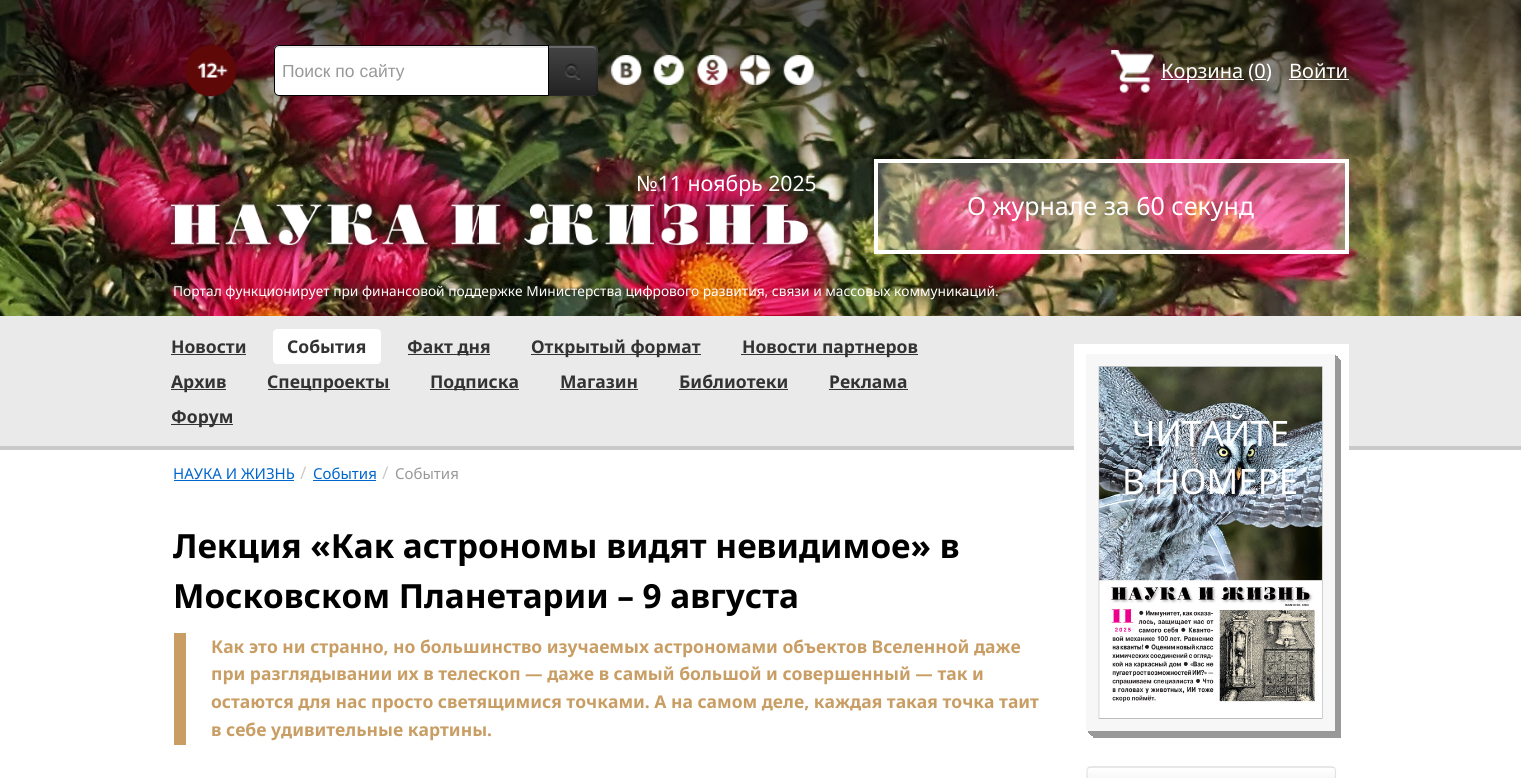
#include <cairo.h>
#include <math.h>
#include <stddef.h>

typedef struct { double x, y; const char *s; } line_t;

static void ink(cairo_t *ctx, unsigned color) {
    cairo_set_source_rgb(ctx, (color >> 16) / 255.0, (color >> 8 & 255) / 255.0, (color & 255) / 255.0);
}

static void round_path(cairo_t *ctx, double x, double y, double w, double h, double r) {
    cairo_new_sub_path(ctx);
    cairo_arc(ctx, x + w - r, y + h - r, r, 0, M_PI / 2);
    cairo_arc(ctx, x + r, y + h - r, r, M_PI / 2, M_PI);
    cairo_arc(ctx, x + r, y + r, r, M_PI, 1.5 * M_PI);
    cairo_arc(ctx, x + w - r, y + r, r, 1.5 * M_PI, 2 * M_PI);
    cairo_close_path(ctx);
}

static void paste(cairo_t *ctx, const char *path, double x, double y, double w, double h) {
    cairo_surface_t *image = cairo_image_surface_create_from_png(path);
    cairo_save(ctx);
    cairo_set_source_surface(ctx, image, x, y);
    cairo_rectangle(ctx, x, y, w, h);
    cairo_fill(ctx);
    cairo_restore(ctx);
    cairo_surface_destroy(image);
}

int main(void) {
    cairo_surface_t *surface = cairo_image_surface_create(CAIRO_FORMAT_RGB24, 1521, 778);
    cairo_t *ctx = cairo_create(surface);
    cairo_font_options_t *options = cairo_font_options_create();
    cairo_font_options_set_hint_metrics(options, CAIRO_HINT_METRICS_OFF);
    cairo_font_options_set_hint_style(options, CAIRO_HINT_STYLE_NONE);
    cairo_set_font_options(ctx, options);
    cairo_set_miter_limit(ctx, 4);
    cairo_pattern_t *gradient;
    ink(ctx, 0xFFFFFF);
    cairo_paint(ctx);
    paste(ctx, "media/1.png", 0, 0, 1521, 316);
    cairo_set_source_rgba(ctx, 0, 0, 0, 0.64);
    cairo_rectangle(ctx, 0, 0, 1521, 20);
    cairo_fill(ctx);
    paste(ctx, "media/2.png", 0, 20, 1521, 187);
    paste(ctx, "media/3.png", 185, 45, 52, 52);
    ink(ctx, 0x363636);
    cairo_new_path(ctx);
    cairo_move_to(ctx, 548, 45);
    cairo_line_to(ctx, 593, 45);
    cairo_curve_to(ctx, 596, 45, 598, 47, 598, 50);
    cairo_line_to(ctx, 598, 91);
    cairo_curve_to(ctx, 598, 94, 596, 96, 593, 96);
    cairo_line_to(ctx, 548, 96);
    cairo_close_path(ctx);
    cairo_fill(ctx);
    cairo_save(ctx);
    cairo_new_path(ctx);
    cairo_move_to(ctx, 548, 45);
    cairo_line_to(ctx, 593, 45);
    cairo_curve_to(ctx, 596, 45, 598, 47, 598, 50);
    cairo_line_to(ctx, 598, 91);
    cairo_curve_to(ctx, 598, 94, 596, 96, 593, 96);
    cairo_line_to(ctx, 548, 96);
    cairo_close_path(ctx);
    cairo_clip(ctx);
    gradient = cairo_pattern_create_linear(573, 46, 573, 95);
    cairo_pattern_add_color_stop_rgba(gradient, 0, 0.267, 0.267, 0.267, 1);
    cairo_pattern_add_color_stop_rgba(gradient, 1, 0.133, 0.133, 0.133, 1);
    cairo_set_source(ctx, gradient);
    cairo_pattern_destroy(gradient);
    cairo_rectangle(ctx, 549, 46, 49, 49);
    cairo_fill(ctx);
    cairo_restore(ctx);
    ink(ctx, 0x696969);
    cairo_new_path(ctx);
    cairo_move_to(ctx, 549, 48);
    cairo_line_to(ctx, 592, 48);
    cairo_curve_to(ctx, 595, 48, 596, 49, 596, 51);
    cairo_line_to(ctx, 596, 50);
    cairo_curve_to(ctx, 596, 48, 594, 46, 592, 46);
    cairo_line_to(ctx, 549, 46);
    cairo_close_path(ctx);
    cairo_fill(ctx);
    cairo_set_source_rgba(ctx, 0, 0, 0, 0.1);
    cairo_new_path(ctx);
    cairo_move_to(ctx, 548, 45);
    cairo_line_to(ctx, 549, 46);
    cairo_line_to(ctx, 592, 46);
    cairo_curve_to(ctx, 594, 46, 595, 47, 595, 47);
    cairo_line_to(ctx, 596, 46);
    cairo_curve_to(ctx, 595, 46, 594, 45, 592, 45);
    cairo_close_path(ctx);
    cairo_fill(ctx);
    cairo_new_path(ctx);
    cairo_move_to(ctx, 598, 93);
    cairo_line_to(ctx, 596, 95);
    cairo_line_to(ctx, 595, 94);
    cairo_curve_to(ctx, 596, 93, 596, 92, 596, 91);
    cairo_line_to(ctx, 596, 50);
    cairo_line_to(ctx, 595, 47);
    cairo_line_to(ctx, 596, 46);
    cairo_line_to(ctx, 598, 48);
    cairo_close_path(ctx);
    cairo_fill(ctx);
    cairo_set_source_rgba(ctx, 0, 0, 0, 0.25);
    cairo_new_path(ctx);
    cairo_move_to(ctx, 596, 95);
    cairo_curve_to(ctx, 595, 96, 593, 96, 592, 96);
    cairo_line_to(ctx, 548, 96);
    cairo_line_to(ctx, 549, 95);
    cairo_line_to(ctx, 592, 95);
    cairo_curve_to(ctx, 593, 95, 594, 95, 595, 94);
    cairo_close_path(ctx);
    cairo_fill(ctx);
    ink(ctx, 0xFFFFFF);
    cairo_new_path(ctx);
    cairo_move_to(ctx, 279, 45);
    cairo_line_to(ctx, 549, 45);
    cairo_line_to(ctx, 549, 96);
    cairo_line_to(ctx, 279, 96);
    cairo_curve_to(ctx, 276, 96, 274, 94, 274, 91);
    cairo_line_to(ctx, 274, 50);
    cairo_curve_to(ctx, 274, 47, 276, 45, 279, 45);
    cairo_close_path(ctx);
    cairo_fill(ctx);
    ink(ctx, 0xECECEC);
    cairo_new_path(ctx);
    cairo_move_to(ctx, 279, 48);
    cairo_line_to(ctx, 548, 48);
    cairo_line_to(ctx, 548, 46);
    cairo_line_to(ctx, 279, 46);
    cairo_curve_to(ctx, 276, 46, 275, 48, 275, 51);
    cairo_curve_to(ctx, 275, 49, 277, 48, 279, 48);
    cairo_close_path(ctx);
    cairo_fill(ctx);
    cairo_new_path(ctx);
    cairo_move_to(ctx, 279, 45.5);
    cairo_line_to(ctx, 548.5, 45.5);
    cairo_line_to(ctx, 548.5, 95.5);
    cairo_line_to(ctx, 279, 95.5);
    cairo_curve_to(ctx, 276.5, 95.5, 274.5, 93.5, 274.5, 91);
    cairo_line_to(ctx, 274.5, 50);
    cairo_curve_to(ctx, 274.5, 47.5, 276.5, 45.5, 279, 45.5);
    cairo_close_path(ctx);
    ink(ctx, 0x000000);
    cairo_set_line_width(ctx, 1);
    cairo_stroke(ctx);
    cairo_select_font_face(ctx, "Liberation Sans", CAIRO_FONT_SLANT_NORMAL, CAIRO_FONT_WEIGHT_NORMAL);
    cairo_set_font_size(ctx, 17.5);
    ink(ctx, 0x999999);
    cairo_move_to(ctx, 282, 77);
    cairo_show_text(ctx, "Поиск по сайту");
    paste(ctx, "media/4.png", 565, 63, 16, 17);
    paste(ctx, "media/5.png", 611, 55, 31, 30);
    paste(ctx, "media/6.png", 653, 55, 31, 30);
    paste(ctx, "media/7.png", 697, 55, 31, 30);
    paste(ctx, "media/8.png", 740, 55, 30, 30);
    paste(ctx, "media/9.png", 783, 55, 31, 30);
    paste(ctx, "media/10.png", 1111, 50, 43, 43);
    ink(ctx, 0xFFFFFF);
    cairo_rectangle(ctx, 1161, 79, 83, 1);
    cairo_fill(ctx);
    cairo_select_font_face(ctx, "Noto Sans", CAIRO_FONT_SLANT_NORMAL, CAIRO_FONT_WEIGHT_NORMAL);
    cairo_set_font_size(ctx, 20);
    cairo_move_to(ctx, 1161, 78);
    cairo_show_text(ctx, "Корзина (0)");
    cairo_rectangle(ctx, 1255, 79, 11, 1);
    cairo_fill(ctx);
    cairo_move_to(ctx, 1289, 78);
    cairo_show_text(ctx, "Войти");
    cairo_rectangle(ctx, 1289, 79, 60, 1);
    cairo_fill(ctx);
    cairo_set_font_size(ctx, 21.25);
    cairo_move_to(ctx, 636, 191);
    cairo_show_text(ctx, "№11 ноябрь 2025");
    paste(ctx, "media/11.png", 158, 190, 658, 69);
    cairo_set_source_rgba(ctx, 1, 1, 1, 0.25);
    cairo_rectangle(ctx, 876, 161, 471, 91);
    cairo_fill_preserve(ctx);
    ink(ctx, 0xFFFFFF);
    cairo_set_line_width(ctx, 4);
    cairo_stroke(ctx);
    cairo_set_font_size(ctx, 25);
    cairo_move_to(ctx, 967, 215);
    cairo_show_text(ctx, "О журнале за 60 секунд");
    cairo_set_font_size(ctx, 13.75);
    cairo_move_to(ctx, 173, 296);
    cairo_show_text(ctx, "Портал функционирует при финансовой поддержке Министерства цифрового развития, связи и массовых коммуникаций.");
    ink(ctx, 0xEAEAEA);
    cairo_rectangle(ctx, 0, 316, 1521, 130);
    cairo_fill(ctx);
    ink(ctx, 0xC9C9C9);
    cairo_rectangle(ctx, 0, 446, 1521, 4);
    cairo_fill(ctx);
    cairo_select_font_face(ctx, "Noto Sans", CAIRO_FONT_SLANT_NORMAL, CAIRO_FONT_WEIGHT_BOLD);
    cairo_set_font_size(ctx, 17.5);
    ink(ctx, 0x333333);
    cairo_move_to(ctx, 171, 353);
    cairo_show_text(ctx, "Новости");
    cairo_rectangle(ctx, 171, 354, 75, 1);
    cairo_fill(ctx);
    ink(ctx, 0xFFFFFF);
    round_path(ctx, 273, 329, 108, 35, 4);
    cairo_fill(ctx);
    ink(ctx, 0x333333);
    cairo_move_to(ctx, 287, 353);
    cairo_show_text(ctx, "События");
    cairo_rectangle(ctx, 408, 354, 82, 1);
    cairo_fill(ctx);
    cairo_move_to(ctx, 407, 353);
    cairo_show_text(ctx, "Факт дня");
    cairo_rectangle(ctx, 531, 354, 170, 1);
    cairo_fill(ctx);
    cairo_move_to(ctx, 531, 353);
    cairo_show_text(ctx, "Открытый формат");
    cairo_rectangle(ctx, 741, 354, 177, 1);
    cairo_fill(ctx);
    cairo_move_to(ctx, 742, 353);
    cairo_show_text(ctx, "Новости партнеров");
    cairo_rectangle(ctx, 171, 389, 55, 1);
    cairo_fill(ctx);
    cairo_move_to(ctx, 171, 388);
    cairo_show_text(ctx, "Архив");
    cairo_rectangle(ctx, 268, 389, 122, 1);
    cairo_fill(ctx);
    cairo_move_to(ctx, 267, 388);
    cairo_show_text(ctx, "Спецпроекты");
    cairo_rectangle(ctx, 430, 389, 89, 1);
    cairo_fill(ctx);
    cairo_move_to(ctx, 430, 388);
    cairo_show_text(ctx, "Подписка");
    cairo_move_to(ctx, 560, 388);
    cairo_show_text(ctx, "Магазин");
    cairo_rectangle(ctx, 560, 389, 78, 1);
    cairo_fill(ctx);
    cairo_move_to(ctx, 679, 388);
    cairo_show_text(ctx, "Библиотеки");
    cairo_rectangle(ctx, 679, 389, 109, 1);
    cairo_fill(ctx);
    cairo_move_to(ctx, 829, 388);
    cairo_show_text(ctx, "Реклама");
    cairo_rectangle(ctx, 829, 389, 79, 1);
    cairo_fill(ctx);
    cairo_rectangle(ctx, 171, 424, 62, 1);
    cairo_fill(ctx);
    cairo_move_to(ctx, 171, 423);
    cairo_show_text(ctx, "Форум");
    ink(ctx, 0xFFFFFF);
    cairo_rectangle(ctx, 1074, 344, 275, 106);
    cairo_fill(ctx);
    ink(ctx, 0x999999);
    cairo_new_path(ctx);
    cairo_move_to(ctx, 1093, 731);
    cairo_line_to(ctx, 1093, 738);
    cairo_line_to(ctx, 1341, 738);
    cairo_line_to(ctx, 1341, 360);
    cairo_line_to(ctx, 1335, 360);
    cairo_line_to(ctx, 1335, 731);
    cairo_close_path(ctx);
    cairo_fill(ctx);
    cairo_new_path(ctx);
    cairo_move_to(ctx, 1091, 731);
    cairo_line_to(ctx, 1091, 736);
    cairo_line_to(ctx, 1340, 736);
    cairo_line_to(ctx, 1340, 359);
    cairo_line_to(ctx, 1335, 359);
    cairo_line_to(ctx, 1335, 731);
    cairo_close_path(ctx);
    cairo_fill(ctx);
    cairo_new_path(ctx);
    cairo_move_to(ctx, 1090, 731);
    cairo_line_to(ctx, 1090, 735);
    cairo_line_to(ctx, 1339, 735);
    cairo_line_to(ctx, 1339, 358);
    cairo_line_to(ctx, 1335, 358);
    cairo_line_to(ctx, 1335, 731);
    cairo_close_path(ctx);
    cairo_fill(ctx);
    cairo_new_path(ctx);
    cairo_move_to(ctx, 1089, 731);
    cairo_line_to(ctx, 1089, 734);
    cairo_line_to(ctx, 1338, 734);
    cairo_line_to(ctx, 1338, 356);
    cairo_line_to(ctx, 1335, 356);
    cairo_line_to(ctx, 1335, 731);
    cairo_close_path(ctx);
    cairo_fill(ctx);
    cairo_new_path(ctx);
    cairo_move_to(ctx, 1088, 731);
    cairo_line_to(ctx, 1088, 733);
    cairo_line_to(ctx, 1336, 733);
    cairo_line_to(ctx, 1336, 355);
    cairo_line_to(ctx, 1335, 355);
    cairo_line_to(ctx, 1335, 731);
    cairo_close_path(ctx);
    cairo_fill(ctx);
    ink(ctx, 0xF7F7F7);
    cairo_rectangle(ctx, 1086, 354, 249, 377);
    cairo_fill(ctx);
    paste(ctx, "media/12.png", 1098, 366, 225, 353);
    cairo_select_font_face(ctx, "Noto Sans", CAIRO_FONT_SLANT_NORMAL, CAIRO_FONT_WEIGHT_NORMAL);
    cairo_set_font_size(ctx, 35);
    ink(ctx, 0xFFFFFF);
    cairo_move_to(ctx, 1132, 446);
    cairo_show_text(ctx, "ЧИТАЙТЕ");
    cairo_move_to(ctx, 1122, 494);
    cairo_show_text(ctx, "В НОМЕРЕ");
    ink(ctx, 0xF5F5F5);
    round_path(ctx, 1086, 766, 250, 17, 5);
    cairo_fill(ctx);
    cairo_save(ctx);
    round_path(ctx, 1086, 766, 250, 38, 5);
    cairo_clip(ctx);
    gradient = cairo_pattern_create_linear(1211, 768, 1211, 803);
    cairo_pattern_add_color_stop_rgba(gradient, 0, 1, 1, 1, 1);
    cairo_pattern_add_color_stop_rgba(gradient, 1, 0.902, 0.902, 0.902, 1);
    cairo_set_source(ctx, gradient);
    cairo_pattern_destroy(gradient);
    cairo_rectangle(ctx, 1086, 768, 250, 10);
    cairo_fill(ctx);
    cairo_restore(ctx);
    cairo_new_path(ctx);
    cairo_move_to(ctx, 1088, 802);
    cairo_curve_to(ctx, 1087.5, 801, 1087, 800, 1087, 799);
    cairo_line_to(ctx, 1087, 771);
    cairo_curve_to(ctx, 1087, 770, 1087.5, 769, 1088, 768);
    cairo_curve_to(ctx, 1089, 767.5, 1090, 767, 1091, 767);
    cairo_line_to(ctx, 1331, 767);
    cairo_curve_to(ctx, 1332.5, 767, 1333.5, 767.5, 1334.5, 768);
    cairo_curve_to(ctx, 1335, 769, 1335.5, 770, 1335.5, 771);
    cairo_line_to(ctx, 1335.5, 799);
    cairo_curve_to(ctx, 1335.5, 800, 1335, 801, 1334.5, 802);
    cairo_set_source_rgba(ctx, 0, 0, 0, 0.1);
    cairo_set_line_width(ctx, 1.2);
    cairo_stroke(ctx);
    cairo_set_font_size(ctx, 15);
    ink(ctx, 0x0066CC);
    cairo_move_to(ctx, 173, 479);
    cairo_show_text(ctx, "НАУКА И ЖИЗНЬ");
    cairo_rectangle(ctx, 174, 480, 120, 1);
    cairo_fill(ctx);
    cairo_set_font_size(ctx, 17.5);
    ink(ctx, 0xCCCCCC);
    cairo_move_to(ctx, 300, 479);
    cairo_show_text(ctx, "/");
    cairo_set_font_size(ctx, 15);
    ink(ctx, 0x0066CC);
    cairo_move_to(ctx, 313, 479);
    cairo_show_text(ctx, "События");
    cairo_rectangle(ctx, 313, 480, 63, 1);
    cairo_fill(ctx);
    cairo_set_font_size(ctx, 17.5);
    ink(ctx, 0xCCCCCC);
    cairo_move_to(ctx, 382, 479);
    cairo_show_text(ctx, "/");
    cairo_set_font_size(ctx, 15);
    ink(ctx, 0x999999);
    cairo_move_to(ctx, 395, 479);
    cairo_show_text(ctx, "События");
    cairo_select_font_face(ctx, "Noto Sans", CAIRO_FONT_SLANT_NORMAL, CAIRO_FONT_WEIGHT_BOLD);
    cairo_set_font_size(ctx, 33.3);
    ink(ctx, 0x000000);
    cairo_move_to(ctx, 173, 558);
    cairo_show_text(ctx, "Лекция «Как астрономы видят невидимое» в");
    cairo_move_to(ctx, 173, 608);
    cairo_show_text(ctx, "Московском Планетарии – 9 августа");
    ink(ctx, 0xC99E65);
    cairo_rectangle(ctx, 174, 633, 12, 112);
    cairo_fill(ctx);
    cairo_set_font_size(ctx, 17.5);
    {
        static const line_t items[] = {
            {211, 653, "Как это ни странно, но большинство изучаемых астрономами объектов Вселенной даже"},
            {211, 680, "при разглядывании их в телескоп — даже в самый большой и совершенный — так и"},
            {211, 708, "остаются для нас просто светящимися точками. А на самом деле, каждая такая точка таит"},
            {211, 736, "в себе удивительные картины."},
        };
        for (size_t i = 0; i < sizeof items / sizeof *items; i++) {
            cairo_move_to(ctx, items[i].x, items[i].y);
            cairo_show_text(ctx, items[i].s);
        }
    }
    cairo_surface_write_to_png(surface, "image.png");
    cairo_font_options_destroy(options);
    cairo_destroy(ctx);
    cairo_surface_destroy(surface);
    return 0;
}
